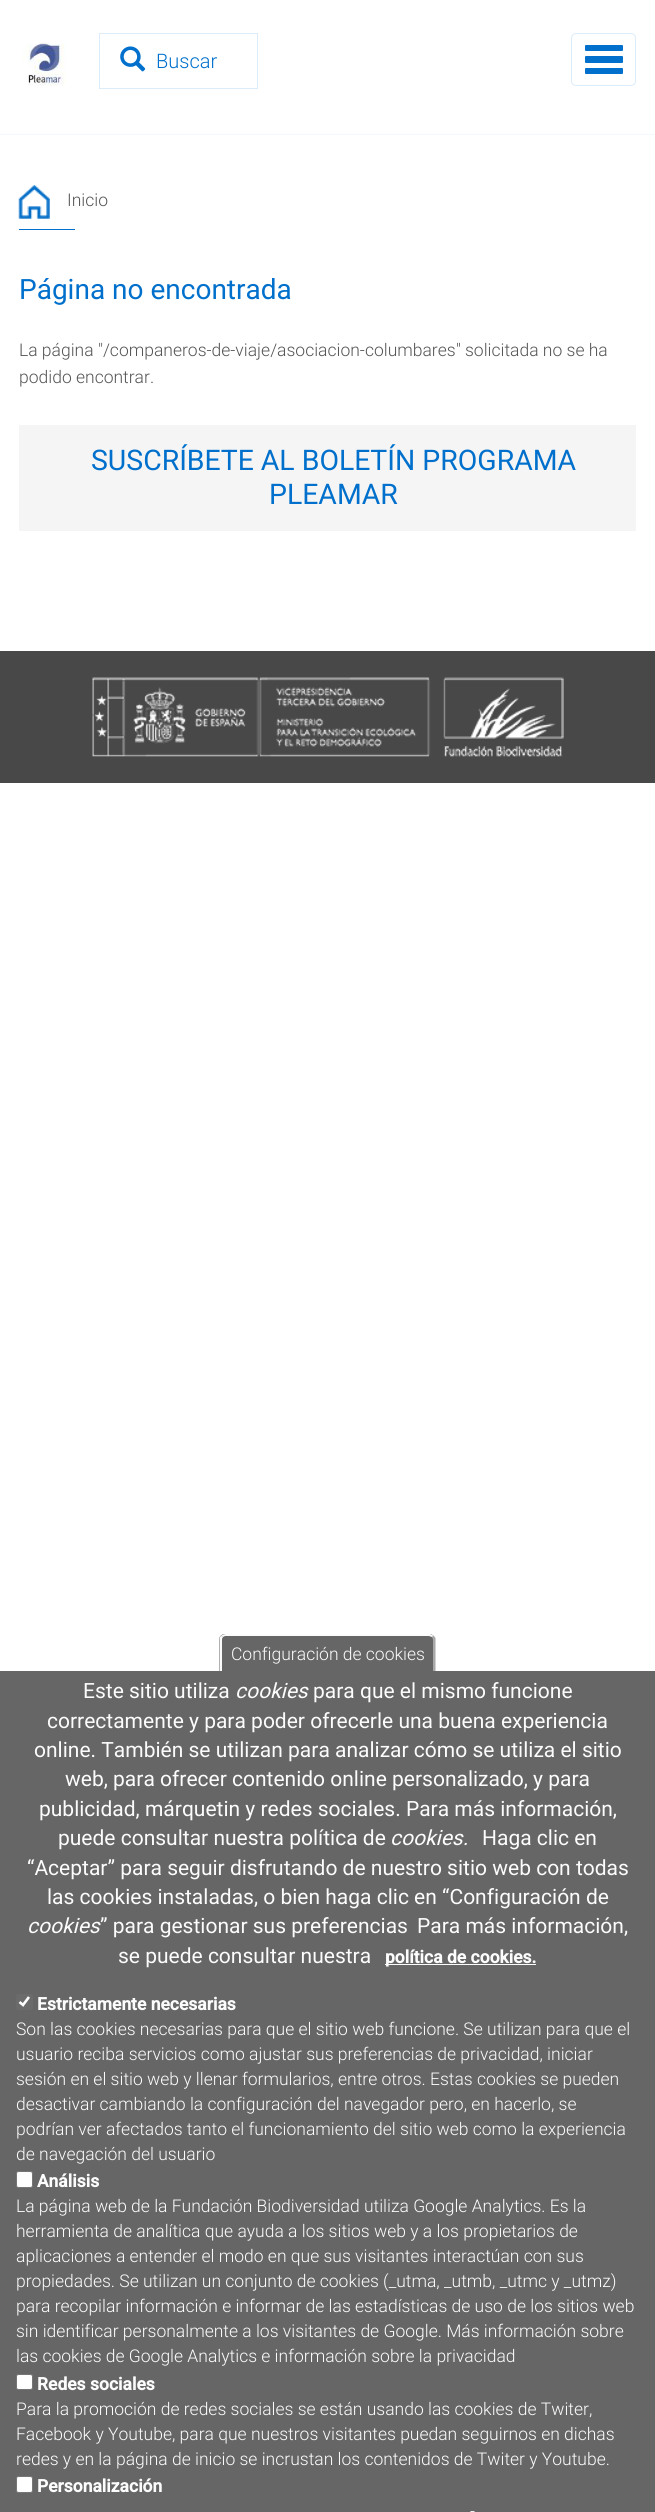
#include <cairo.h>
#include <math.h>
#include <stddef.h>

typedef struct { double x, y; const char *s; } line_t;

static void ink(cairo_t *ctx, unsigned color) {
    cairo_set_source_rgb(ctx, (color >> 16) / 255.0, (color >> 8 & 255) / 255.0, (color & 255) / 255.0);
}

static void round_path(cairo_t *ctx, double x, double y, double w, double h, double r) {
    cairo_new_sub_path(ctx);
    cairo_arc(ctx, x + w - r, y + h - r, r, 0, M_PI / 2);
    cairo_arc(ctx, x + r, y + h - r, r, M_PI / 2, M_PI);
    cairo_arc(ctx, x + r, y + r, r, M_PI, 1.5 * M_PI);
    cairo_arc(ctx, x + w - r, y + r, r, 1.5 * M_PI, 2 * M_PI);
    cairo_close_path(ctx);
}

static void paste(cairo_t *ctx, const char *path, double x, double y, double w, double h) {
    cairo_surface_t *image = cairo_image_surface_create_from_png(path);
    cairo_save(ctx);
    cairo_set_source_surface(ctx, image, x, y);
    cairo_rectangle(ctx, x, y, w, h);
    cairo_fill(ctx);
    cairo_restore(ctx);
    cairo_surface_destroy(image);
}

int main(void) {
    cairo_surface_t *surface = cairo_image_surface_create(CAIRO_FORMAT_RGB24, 655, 2512);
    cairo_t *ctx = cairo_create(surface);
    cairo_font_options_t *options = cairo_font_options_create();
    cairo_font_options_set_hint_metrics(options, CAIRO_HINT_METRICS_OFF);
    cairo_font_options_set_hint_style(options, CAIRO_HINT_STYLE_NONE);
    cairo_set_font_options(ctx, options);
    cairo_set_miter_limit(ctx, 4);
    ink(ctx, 0xFFFFFF);
    cairo_paint(ctx);
    paste(ctx, "media/1.png", 23, 42, 43, 44);
    cairo_rectangle(ctx, 99.5, 33.5, 158, 55);
    ink(ctx, 0xDCECFA);
    cairo_set_line_width(ctx, 1);
    cairo_stroke(ctx);
    paste(ctx, "media/2.png", 120, 46, 26, 26);
    cairo_select_font_face(ctx, "Roboto Light", CAIRO_FONT_SLANT_NORMAL, CAIRO_FONT_WEIGHT_NORMAL);
    cairo_set_font_size(ctx, 20);
    ink(ctx, 0x0070CC);
    cairo_move_to(ctx, 156, 68);
    cairo_show_text(ctx, "Buscar");
    round_path(ctx, 571.5, 33.5, 64, 52, 4.5);
    ink(ctx, 0xDCECFA);
    cairo_stroke(ctx);
    ink(ctx, 0x0070CC);
    round_path(ctx, 585, 45, 38, 6, 1);
    cairo_fill(ctx);
    round_path(ctx, 585, 56, 38, 7, 1);
    cairo_fill(ctx);
    round_path(ctx, 585, 68, 38, 6, 1);
    cairo_fill(ctx);
    ink(ctx, 0xF2F8FD);
    cairo_rectangle(ctx, 0, 134, 655, 1);
    cairo_fill(ctx);
    paste(ctx, "media/3.png", 18, 185, 32, 34);
    cairo_set_font_size(ctx, 17.5);
    ink(ctx, 0x555555);
    cairo_move_to(ctx, 67, 206);
    cairo_show_text(ctx, "Inicio");
    ink(ctx, 0x0070CC);
    cairo_rectangle(ctx, 19, 229, 56, 1);
    cairo_fill(ctx);
    cairo_select_font_face(ctx, "Roboto", CAIRO_FONT_SLANT_NORMAL, CAIRO_FONT_WEIGHT_NORMAL);
    cairo_set_font_size(ctx, 28);
    cairo_move_to(ctx, 19, 299);
    cairo_show_text(ctx, "Página no encontrada");
    cairo_select_font_face(ctx, "Roboto Light", CAIRO_FONT_SLANT_NORMAL, CAIRO_FONT_WEIGHT_NORMAL);
    cairo_set_font_size(ctx, 17.5);
    ink(ctx, 0x555555);
    cairo_move_to(ctx, 19, 356);
    cairo_show_text(ctx, "La página \"/companeros-de-viaje/asociacion-columbares\" solicitada no se ha");
    cairo_move_to(ctx, 19, 383);
    cairo_show_text(ctx, "podido encontrar.");
    ink(ctx, 0xF5F5F5);
    cairo_rectangle(ctx, 19, 425, 617, 106);
    cairo_fill(ctx);
    cairo_select_font_face(ctx, "Roboto", CAIRO_FONT_SLANT_NORMAL, CAIRO_FONT_WEIGHT_NORMAL);
    cairo_set_font_size(ctx, 28.4);
    ink(ctx, 0x0070CC);
    cairo_move_to(ctx, 91, 470);
    cairo_show_text(ctx, "SUSCRÍBETE AL BOLETÍN PROGRAMA");
    cairo_move_to(ctx, 269, 504);
    cairo_show_text(ctx, "PLEAMAR");
    ink(ctx, 0x484848);
    cairo_rectangle(ctx, 0, 651, 655, 132);
    cairo_fill(ctx);
    paste(ctx, "media/4.png", 92, 677, 472, 80);
    ink(ctx, 0x666666);
    cairo_rectangle(ctx, 0, 1671, 655, 841);
    cairo_fill(ctx);
    cairo_new_path(ctx);
    cairo_move_to(ctx, 225, 1634);
    cairo_line_to(ctx, 429, 1634);
    cairo_curve_to(ctx, 432.5, 1634, 435, 1636.5, 435, 1640);
    cairo_line_to(ctx, 435, 1671);
    cairo_line_to(ctx, 219, 1671);
    cairo_line_to(ctx, 219, 1640);
    cairo_curve_to(ctx, 219, 1636.5, 221.5, 1634, 225, 1634);
    cairo_close_path(ctx);
    cairo_fill(ctx);
    ink(ctx, 0xFCFCFC);
    cairo_new_path(ctx);
    cairo_move_to(ctx, 226, 1634);
    cairo_line_to(ctx, 430, 1634);
    cairo_line_to(ctx, 434, 1636);
    cairo_line_to(ctx, 432, 1637);
    cairo_line_to(ctx, 429, 1636);
    cairo_line_to(ctx, 225, 1636);
    cairo_line_to(ctx, 223, 1637);
    cairo_line_to(ctx, 221, 1636);
    cairo_curve_to(ctx, 222, 1635, 224, 1634, 226, 1634);
    cairo_close_path(ctx);
    cairo_fill(ctx);
    ink(ctx, 0xA8A8A8);
    cairo_new_path(ctx);
    cairo_move_to(ctx, 433.5, 1635.5);
    cairo_line_to(ctx, 435.5, 1638);
    cairo_line_to(ctx, 435.5, 1671);
    cairo_line_to(ctx, 433, 1671);
    cairo_line_to(ctx, 433, 1640);
    cairo_curve_to(ctx, 433, 1639, 432.5, 1638, 432, 1637.5);
    cairo_close_path(ctx);
    cairo_fill(ctx);
    ink(ctx, 0xFCFCFC);
    cairo_new_path(ctx);
    cairo_move_to(ctx, 221, 1635.5);
    cairo_line_to(ctx, 223, 1637.5);
    cairo_curve_to(ctx, 222, 1638, 222, 1639, 222, 1640);
    cairo_line_to(ctx, 222, 1671);
    cairo_line_to(ctx, 219.5, 1671);
    cairo_line_to(ctx, 219.5, 1638.5);
    cairo_curve_to(ctx, 219.5, 1637.5, 220.5, 1636.5, 221, 1635.5);
    cairo_close_path(ctx);
    cairo_fill(ctx);
    cairo_select_font_face(ctx, "Roboto Light", CAIRO_FONT_SLANT_NORMAL, CAIRO_FONT_WEIGHT_NORMAL);
    cairo_set_font_size(ctx, 17.5);
    cairo_move_to(ctx, 231, 1660);
    cairo_show_text(ctx, "Configuración de cookies");
    cairo_select_font_face(ctx, "Roboto", CAIRO_FONT_SLANT_NORMAL, CAIRO_FONT_WEIGHT_NORMAL);
    cairo_set_font_size(ctx, 21);
    cairo_move_to(ctx, 83, 1698);
    cairo_show_text(ctx, "Este sitio utiliza");
    cairo_select_font_face(ctx, "Roboto", CAIRO_FONT_SLANT_ITALIC, CAIRO_FONT_WEIGHT_NORMAL);
    cairo_move_to(ctx, 235, 1698);
    cairo_show_text(ctx, "cookies");
    cairo_select_font_face(ctx, "Roboto", CAIRO_FONT_SLANT_NORMAL, CAIRO_FONT_WEIGHT_NORMAL);
    {
        static const line_t items[] = {
            {313, 1698, "para que el mismo funcione"},
            {47, 1728, "correctamente y para poder ofrecerle una buena experiencia"},
            {34, 1757, "online. También se utilizan para analizar cómo se utiliza el sitio"},
            {65, 1786, "web, para ofrecer contenido online personalizado, y para"},
            {39, 1816, "publicidad, márquetin y redes sociales. Para más información,"},
            {58, 1845, "puede consultar nuestra política de"},
        };
        for (size_t i = 0; i < sizeof items / sizeof *items; i++) {
            cairo_move_to(ctx, items[i].x, items[i].y);
            cairo_show_text(ctx, items[i].s);
        }
    }
    cairo_select_font_face(ctx, "Roboto", CAIRO_FONT_SLANT_ITALIC, CAIRO_FONT_WEIGHT_NORMAL);
    cairo_move_to(ctx, 390, 1845);
    cairo_show_text(ctx, "cookies.");
    cairo_select_font_face(ctx, "Roboto", CAIRO_FONT_SLANT_NORMAL, CAIRO_FONT_WEIGHT_NORMAL);
    {
        static const line_t items[] = {
            {482, 1845, "Haga clic en"},
            {27, 1875, "“Aceptar” para seguir disfrutando de nuestro sitio web con todas"},
            {47, 1904, "las cookies instaladas, o bien haga clic en “Configuración de"},
        };
        for (size_t i = 0; i < sizeof items / sizeof *items; i++) {
            cairo_move_to(ctx, items[i].x, items[i].y);
            cairo_show_text(ctx, items[i].s);
        }
    }
    cairo_select_font_face(ctx, "Roboto", CAIRO_FONT_SLANT_ITALIC, CAIRO_FONT_WEIGHT_NORMAL);
    cairo_move_to(ctx, 27, 1933);
    cairo_show_text(ctx, "cookies");
    cairo_select_font_face(ctx, "Roboto", CAIRO_FONT_SLANT_NORMAL, CAIRO_FONT_WEIGHT_NORMAL);
    {
        static const line_t items[] = {
            {100, 1933, "” para gestionar sus preferencias"},
            {417, 1933, "Para más información,"},
            {118, 1963, "se puede consultar nuestra"},
        };
        for (size_t i = 0; i < sizeof items / sizeof *items; i++) {
            cairo_move_to(ctx, items[i].x, items[i].y);
            cairo_show_text(ctx, items[i].s);
        }
    }
    cairo_rectangle(ctx, 385, 1964, 151, 1);
    cairo_fill(ctx);
    cairo_select_font_face(ctx, "Roboto", CAIRO_FONT_SLANT_NORMAL, CAIRO_FONT_WEIGHT_BOLD);
    cairo_set_font_size(ctx, 17.5);
    cairo_move_to(ctx, 385, 1963);
    cairo_show_text(ctx, "política de cookies.");
    ink(ctx, 0x6B6B6B);
    round_path(ctx, 16, 1994, 17, 16, 2.5);
    cairo_fill(ctx);
    cairo_new_path(ctx);
    cairo_move_to(ctx, 19.5, 2002);
    cairo_line_to(ctx, 23, 2005);
    cairo_line_to(ctx, 29, 1997);
    ink(ctx, 0xFFFFFF);
    cairo_set_line_width(ctx, 2.6);
    cairo_stroke(ctx);
    ink(ctx, 0xFCFCFC);
    cairo_move_to(ctx, 37, 2010);
    cairo_show_text(ctx, "Estrictamente necesarias");
    cairo_select_font_face(ctx, "Roboto Light", CAIRO_FONT_SLANT_NORMAL, CAIRO_FONT_WEIGHT_NORMAL);
    {
        static const line_t items[] = {
            {16, 2035, "Son las cookies necesarias para que el sitio web funcione. Se utilizan para que el"},
            {16, 2060, "usuario reciba servicios como ajustar sus preferencias de privacidad, iniciar"},
            {16, 2085, "sesión en el sitio web y llenar formularios, entre otros. Estas cookies se pueden"},
            {16, 2110, "desactivar cambiando la configuración del navegador pero, en hacerlo, se"},
            {16, 2135, "podrían ver afectados tanto el funcionamiento del sitio web como la experiencia"},
            {16, 2160, "de navegación del usuario"},
        };
        for (size_t i = 0; i < sizeof items / sizeof *items; i++) {
            cairo_move_to(ctx, items[i].x, items[i].y);
            cairo_show_text(ctx, items[i].s);
        }
    }
    ink(ctx, 0xFFFFFF);
    round_path(ctx, 16.5, 2171.5, 16, 16, 2);
    cairo_fill_preserve(ctx);
    ink(ctx, 0x767676);
    cairo_set_line_width(ctx, 1);
    cairo_stroke(ctx);
    cairo_select_font_face(ctx, "Roboto", CAIRO_FONT_SLANT_NORMAL, CAIRO_FONT_WEIGHT_BOLD);
    ink(ctx, 0xFCFCFC);
    cairo_move_to(ctx, 37, 2187);
    cairo_show_text(ctx, "Análisis");
    cairo_select_font_face(ctx, "Roboto Light", CAIRO_FONT_SLANT_NORMAL, CAIRO_FONT_WEIGHT_NORMAL);
    {
        static const line_t items[] = {
            {16, 2212, "La página web de la Fundación Biodiversidad utiliza Google Analytics. Es la"},
            {16, 2237, "herramienta de analítica que ayuda a los sitios web y a los propietarios de"},
            {16, 2262, "aplicaciones a entender el modo en que sus visitantes interactúan con sus"},
            {16, 2287, "propiedades. Se utilizan un conjunto de cookies (_utma, _utmb, _utmc y _utmz)"},
            {16, 2312, "para recopilar información e informar de las estadísticas de uso de los sitios web"},
            {16, 2337, "sin identificar personalmente a los visitantes de Google. Más información sobre"},
            {16, 2362, "las cookies de Google Analytics e información sobre la privacidad"},
        };
        for (size_t i = 0; i < sizeof items / sizeof *items; i++) {
            cairo_move_to(ctx, items[i].x, items[i].y);
            cairo_show_text(ctx, items[i].s);
        }
    }
    ink(ctx, 0xFFFFFF);
    round_path(ctx, 16.5, 2374.5, 16, 15, 2);
    cairo_fill_preserve(ctx);
    ink(ctx, 0x767676);
    cairo_stroke(ctx);
    cairo_select_font_face(ctx, "Roboto", CAIRO_FONT_SLANT_NORMAL, CAIRO_FONT_WEIGHT_BOLD);
    ink(ctx, 0xFCFCFC);
    cairo_move_to(ctx, 37, 2390);
    cairo_show_text(ctx, "Redes sociales");
    cairo_select_font_face(ctx, "Roboto Light", CAIRO_FONT_SLANT_NORMAL, CAIRO_FONT_WEIGHT_NORMAL);
    {
        static const line_t items[] = {
            {16, 2415, "Para la promoción de redes sociales se están usando las cookies de Twiter,"},
            {16, 2440, "Facebook y Youtube, para que nuestros visitantes puedan seguirnos en dichas"},
            {16, 2465, "redes y en la página de inicio se incrustan los contenidos de Twiter y Youtube."},
        };
        for (size_t i = 0; i < sizeof items / sizeof *items; i++) {
            cairo_move_to(ctx, items[i].x, items[i].y);
            cairo_show_text(ctx, items[i].s);
        }
    }
    ink(ctx, 0xFFFFFF);
    round_path(ctx, 16.5, 2476.5, 16, 16, 2);
    cairo_fill_preserve(ctx);
    ink(ctx, 0x767676);
    cairo_stroke(ctx);
    cairo_select_font_face(ctx, "Roboto", CAIRO_FONT_SLANT_NORMAL, CAIRO_FONT_WEIGHT_BOLD);
    ink(ctx, 0xFCFCFC);
    cairo_move_to(ctx, 37, 2492);
    cairo_show_text(ctx, "Personalización");
    cairo_select_font_face(ctx, "Roboto Light", CAIRO_FONT_SLANT_NORMAL, CAIRO_FONT_WEIGHT_NORMAL);
    cairo_move_to(ctx, 470, 2517);
    cairo_show_text(ctx, "-");
    cairo_surface_write_to_png(surface, "image.png");
    cairo_font_options_destroy(options);
    cairo_destroy(ctx);
    cairo_surface_destroy(surface);
    return 0;
}
